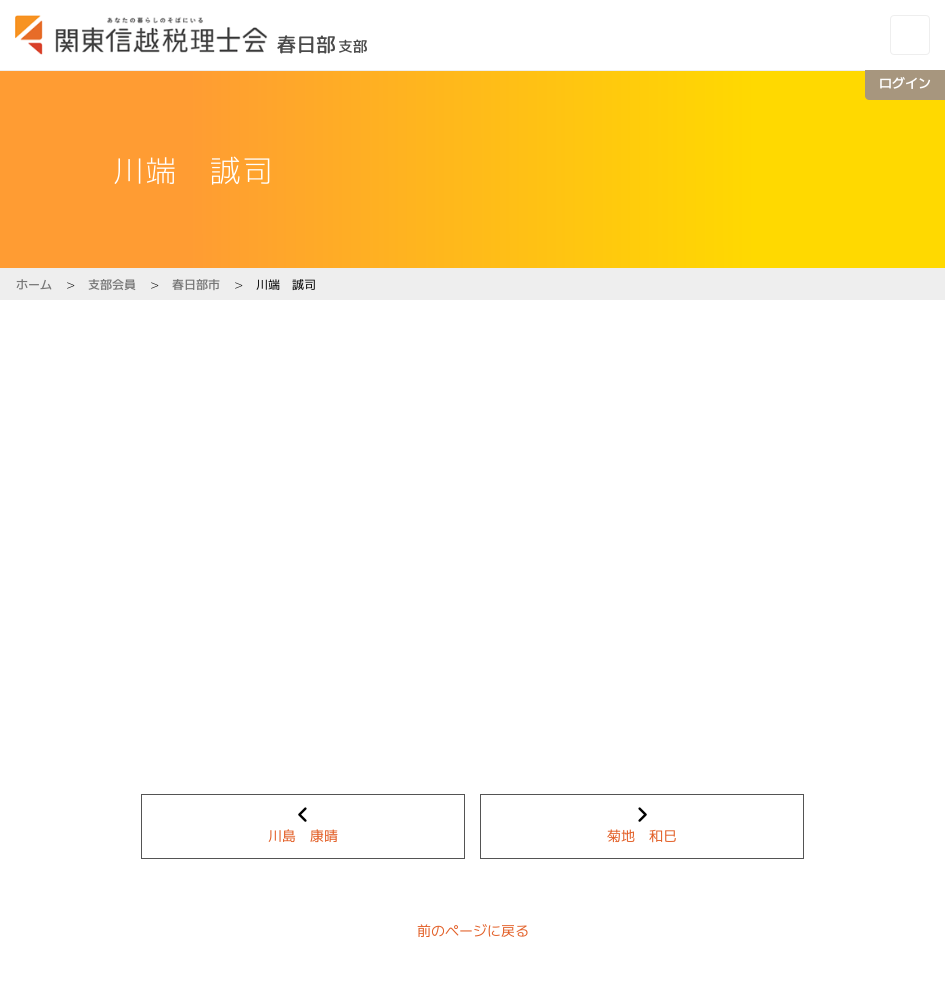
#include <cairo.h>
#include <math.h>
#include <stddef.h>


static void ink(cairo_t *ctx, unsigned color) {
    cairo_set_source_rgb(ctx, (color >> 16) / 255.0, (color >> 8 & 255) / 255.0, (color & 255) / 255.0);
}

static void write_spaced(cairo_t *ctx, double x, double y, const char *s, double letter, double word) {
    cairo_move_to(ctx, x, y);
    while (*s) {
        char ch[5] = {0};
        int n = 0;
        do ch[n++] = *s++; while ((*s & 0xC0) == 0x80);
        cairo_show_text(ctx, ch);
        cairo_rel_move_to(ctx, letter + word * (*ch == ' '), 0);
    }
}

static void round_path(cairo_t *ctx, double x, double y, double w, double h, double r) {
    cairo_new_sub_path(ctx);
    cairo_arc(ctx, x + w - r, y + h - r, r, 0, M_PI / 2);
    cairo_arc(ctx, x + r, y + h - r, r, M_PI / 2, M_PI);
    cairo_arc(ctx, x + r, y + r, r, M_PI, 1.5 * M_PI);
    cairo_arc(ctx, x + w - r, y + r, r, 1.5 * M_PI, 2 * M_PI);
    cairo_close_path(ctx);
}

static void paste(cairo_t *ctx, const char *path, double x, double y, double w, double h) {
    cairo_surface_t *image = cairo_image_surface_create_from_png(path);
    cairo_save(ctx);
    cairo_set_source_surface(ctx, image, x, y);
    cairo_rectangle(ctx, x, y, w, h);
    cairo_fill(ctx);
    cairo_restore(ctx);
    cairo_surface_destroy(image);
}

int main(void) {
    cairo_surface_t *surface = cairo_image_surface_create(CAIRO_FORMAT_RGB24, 945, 1008);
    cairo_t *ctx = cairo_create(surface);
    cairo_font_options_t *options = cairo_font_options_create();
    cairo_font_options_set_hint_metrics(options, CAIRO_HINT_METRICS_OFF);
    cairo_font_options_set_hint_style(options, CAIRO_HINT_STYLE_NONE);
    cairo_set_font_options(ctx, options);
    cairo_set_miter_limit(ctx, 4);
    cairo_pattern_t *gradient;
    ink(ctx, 0xFFFFFF);
    cairo_paint(ctx);
    ink(ctx, 0xEEEEEE);
    cairo_rectangle(ctx, 0, 70, 865, 1);
    cairo_fill(ctx);
    paste(ctx, "media/1.png", 15, 15, 352, 40);
    round_path(ctx, 890.5, 15.5, 39, 39, 3.5);
    cairo_set_line_width(ctx, 1);
    cairo_stroke(ctx);
    gradient = cairo_pattern_create_linear(0, 170, 945, 169);
    cairo_pattern_add_color_stop_rgba(gradient, 0.2, 1, 0.612, 0.2, 1);
    cairo_pattern_add_color_stop_rgba(gradient, 0.8, 1, 0.851, 0, 1);
    cairo_set_source(ctx, gradient);
    cairo_pattern_destroy(gradient);
    cairo_rectangle(ctx, 0, 71, 945, 197);
    cairo_fill(ctx);
    ink(ctx, 0xA7967E);
    cairo_new_path(ctx);
    cairo_move_to(ctx, 865, 70);
    cairo_line_to(ctx, 945, 70);
    cairo_line_to(ctx, 945, 100);
    cairo_line_to(ctx, 869, 100);
    cairo_curve_to(ctx, 867, 100, 865, 98, 865, 96);
    cairo_close_path(ctx);
    cairo_fill(ctx);
    cairo_select_font_face(ctx, "M PLUS 2 SemiBold", CAIRO_FONT_SLANT_NORMAL, CAIRO_FONT_WEIGHT_NORMAL);
    cairo_set_font_size(ctx, 13);
    ink(ctx, 0xFFFFFF);
    cairo_move_to(ctx, 879, 88);
    cairo_show_text(ctx, "ログイン");
    cairo_select_font_face(ctx, "M PLUS 2 Light", CAIRO_FONT_SLANT_NORMAL, CAIRO_FONT_WEIGHT_NORMAL);
    cairo_set_font_size(ctx, 30.75);
    write_spaced(ctx, 113, 182, "川端　誠司", 1.5, 0);
    ink(ctx, 0xEEEEEE);
    cairo_rectangle(ctx, 0, 268, 945, 32);
    cairo_fill(ctx);
    cairo_select_font_face(ctx, "M PLUS 2 Medium", CAIRO_FONT_SLANT_NORMAL, CAIRO_FONT_WEIGHT_NORMAL);
    cairo_set_font_size(ctx, 12);
    ink(ctx, 0x777777);
    cairo_move_to(ctx, 16, 289);
    cairo_show_text(ctx, "ホーム");
    cairo_select_font_face(ctx, "M PLUS 2 Light", CAIRO_FONT_SLANT_NORMAL, CAIRO_FONT_WEIGHT_NORMAL);
    ink(ctx, 0x000000);
    cairo_move_to(ctx, 66, 289);
    cairo_show_text(ctx, ">");
    cairo_select_font_face(ctx, "M PLUS 2 Medium", CAIRO_FONT_SLANT_NORMAL, CAIRO_FONT_WEIGHT_NORMAL);
    ink(ctx, 0x777777);
    cairo_move_to(ctx, 88, 289);
    cairo_show_text(ctx, "支部会員");
    cairo_select_font_face(ctx, "M PLUS 2 Light", CAIRO_FONT_SLANT_NORMAL, CAIRO_FONT_WEIGHT_NORMAL);
    ink(ctx, 0x000000);
    cairo_move_to(ctx, 150, 289);
    cairo_show_text(ctx, ">");
    cairo_select_font_face(ctx, "M PLUS 2 Medium", CAIRO_FONT_SLANT_NORMAL, CAIRO_FONT_WEIGHT_NORMAL);
    ink(ctx, 0x777777);
    cairo_move_to(ctx, 172, 289);
    cairo_show_text(ctx, "春日部市");
    cairo_select_font_face(ctx, "M PLUS 2 Light", CAIRO_FONT_SLANT_NORMAL, CAIRO_FONT_WEIGHT_NORMAL);
    ink(ctx, 0x000000);
    cairo_move_to(ctx, 234, 289);
    cairo_show_text(ctx, ">");
    cairo_select_font_face(ctx, "M PLUS 2", CAIRO_FONT_SLANT_NORMAL, CAIRO_FONT_WEIGHT_NORMAL);
    cairo_move_to(ctx, 256, 289);
    cairo_show_text(ctx, "川端　誠司");
    cairo_rectangle(ctx, 141.5, 794.5, 323, 64);
    ink(ctx, 0x545454);
    cairo_stroke(ctx);
    paste(ctx, "media/2.png", 298, 807, 9, 15);
    cairo_set_font_size(ctx, 14);
    ink(ctx, 0xE25F27);
    cairo_move_to(ctx, 268, 841);
    cairo_show_text(ctx, "川島　康晴");
    cairo_rectangle(ctx, 480.5, 794.5, 323, 64);
    ink(ctx, 0x545454);
    cairo_stroke(ctx);
    paste(ctx, "media/3.png", 638, 807, 9, 15);
    ink(ctx, 0xE25F27);
    cairo_move_to(ctx, 607, 841);
    cairo_show_text(ctx, "菊地　和巳");
    cairo_move_to(ctx, 417, 936);
    cairo_show_text(ctx, "前のページに戻る");
    cairo_surface_write_to_png(surface, "image.png");
    cairo_font_options_destroy(options);
    cairo_destroy(ctx);
    cairo_surface_destroy(surface);
    return 0;
}
